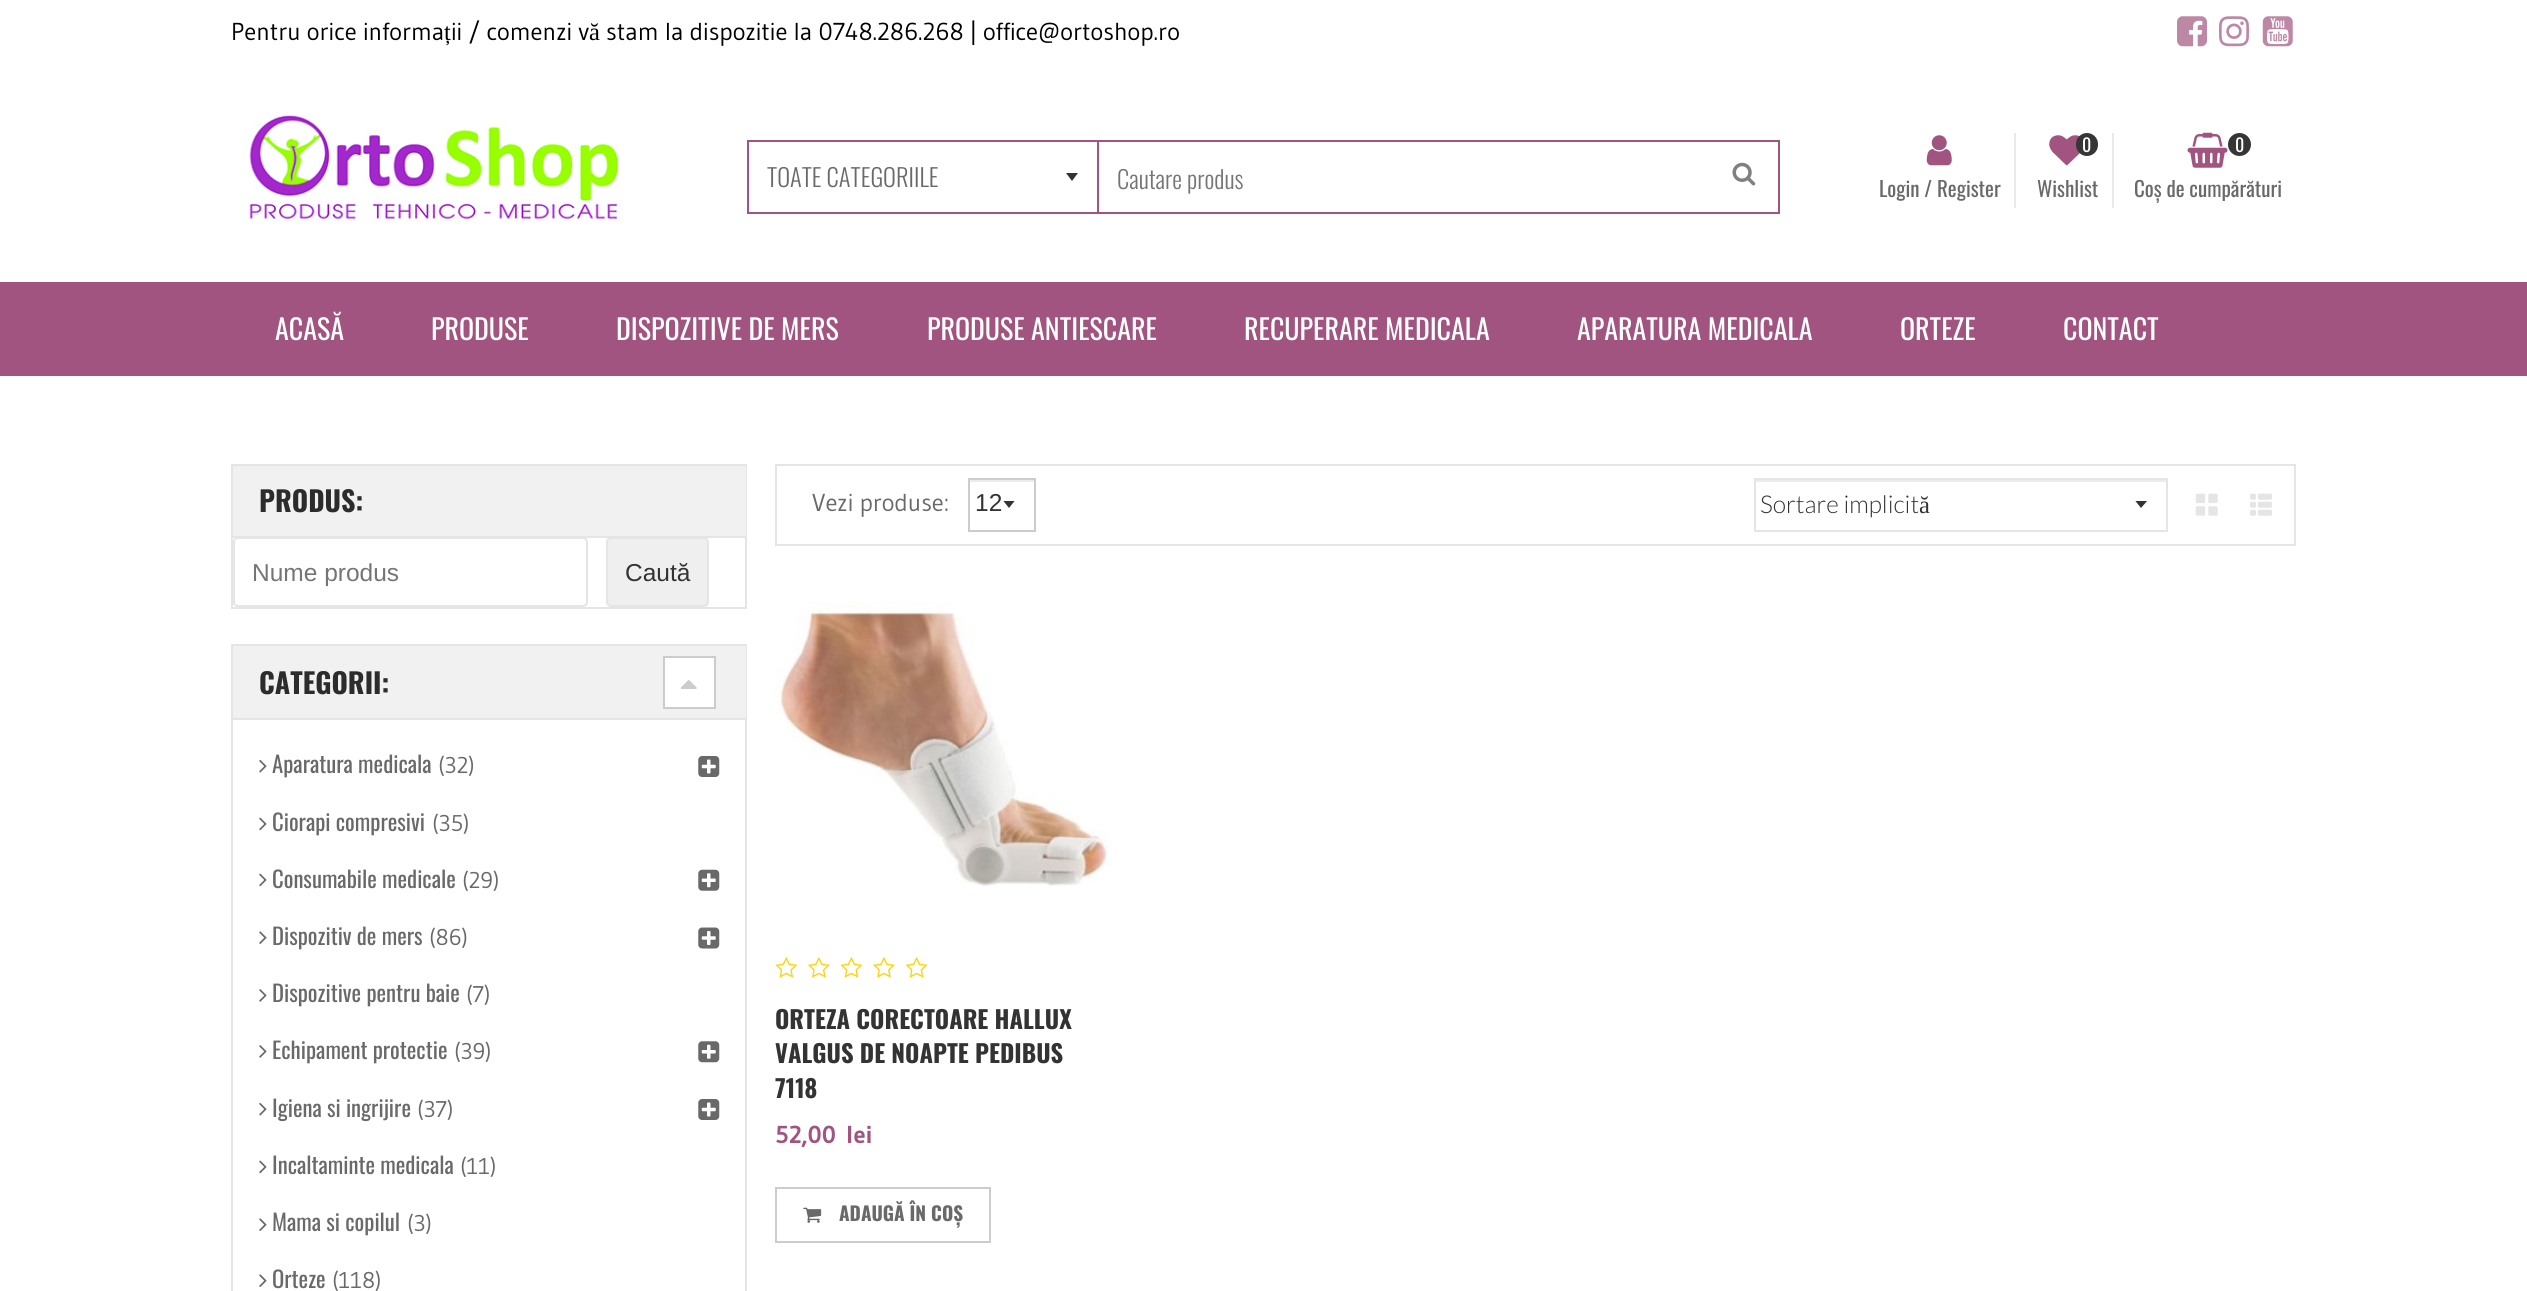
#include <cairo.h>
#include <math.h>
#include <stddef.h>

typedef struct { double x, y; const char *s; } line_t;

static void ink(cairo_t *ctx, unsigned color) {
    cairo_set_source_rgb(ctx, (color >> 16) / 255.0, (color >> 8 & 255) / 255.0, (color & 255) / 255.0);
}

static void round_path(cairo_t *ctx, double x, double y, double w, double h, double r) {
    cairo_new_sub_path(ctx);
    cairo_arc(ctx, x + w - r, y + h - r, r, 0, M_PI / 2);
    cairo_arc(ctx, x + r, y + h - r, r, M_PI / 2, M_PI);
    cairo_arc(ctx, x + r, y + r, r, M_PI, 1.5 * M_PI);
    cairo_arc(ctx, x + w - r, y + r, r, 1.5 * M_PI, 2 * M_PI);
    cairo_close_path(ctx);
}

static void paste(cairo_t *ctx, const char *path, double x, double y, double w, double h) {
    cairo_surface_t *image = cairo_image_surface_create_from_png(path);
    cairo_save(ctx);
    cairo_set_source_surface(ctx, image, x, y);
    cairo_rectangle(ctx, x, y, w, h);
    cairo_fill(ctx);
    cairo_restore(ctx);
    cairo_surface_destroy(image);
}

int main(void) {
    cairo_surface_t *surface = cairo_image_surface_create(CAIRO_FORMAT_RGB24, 2527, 1291);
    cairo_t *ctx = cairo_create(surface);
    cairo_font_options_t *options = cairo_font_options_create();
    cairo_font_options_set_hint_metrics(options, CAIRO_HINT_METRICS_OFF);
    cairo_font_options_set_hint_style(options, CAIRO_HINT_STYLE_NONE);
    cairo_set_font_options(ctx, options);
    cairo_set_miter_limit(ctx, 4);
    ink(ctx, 0xFFFFFF);
    cairo_paint(ctx);
    cairo_select_font_face(ctx, "Gudea", CAIRO_FONT_SLANT_NORMAL, CAIRO_FONT_WEIGHT_NORMAL);
    cairo_set_font_size(ctx, 24.5);
    ink(ctx, 0x000000);
    cairo_move_to(ctx, 231, 40);
    cairo_show_text(ctx, "Pentru orice informa");
    cairo_select_font_face(ctx, "Liberation Serif", CAIRO_FONT_SLANT_NORMAL, CAIRO_FONT_WEIGHT_NORMAL);
    cairo_move_to(ctx, 444, 40);
    cairo_show_text(ctx, "ț");
    cairo_select_font_face(ctx, "Gudea", CAIRO_FONT_SLANT_NORMAL, CAIRO_FONT_WEIGHT_NORMAL);
    cairo_move_to(ctx, 451, 40);
    cairo_show_text(ctx, "ii / comenzi v");
    cairo_select_font_face(ctx, "Liberation Serif", CAIRO_FONT_SLANT_NORMAL, CAIRO_FONT_WEIGHT_NORMAL);
    cairo_move_to(ctx, 589, 40);
    cairo_show_text(ctx, "ă");
    cairo_select_font_face(ctx, "Gudea", CAIRO_FONT_SLANT_NORMAL, CAIRO_FONT_WEIGHT_NORMAL);
    cairo_move_to(ctx, 606, 40);
    cairo_show_text(ctx, "stam la dispozitie la 0748.286.268 | office@ortoshop.ro");
    paste(ctx, "media/1.png", 2177, 16, 30, 31);
    paste(ctx, "media/2.png", 2219, 16, 30, 31);
    paste(ctx, "media/3.png", 2262, 16, 31, 31);
    paste(ctx, "media/4.png", 248, 114, 375, 108);
    cairo_rectangle(ctx, 748, 141, 1031, 72);
    ink(ctx, 0xA15480);
    cairo_stroke(ctx);
    ink(ctx, 0x333333);
    cairo_new_path(ctx);
    cairo_move_to(ctx, 1066, 173);
    cairo_line_to(ctx, 1072, 181);
    cairo_line_to(ctx, 1078, 173);
    cairo_close_path(ctx);
    cairo_fill(ctx);
    ink(ctx, 0xA15480);
    cairo_rectangle(ctx, 1097, 142, 2, 70);
    cairo_fill(ctx);
    cairo_select_font_face(ctx, "Oswald Light", CAIRO_FONT_SLANT_NORMAL, CAIRO_FONT_WEIGHT_NORMAL);
    ink(ctx, 0x696969);
    cairo_move_to(ctx, 767, 187);
    cairo_show_text(ctx, "TOATE CATEGORIILE");
    ink(ctx, 0x757575);
    cairo_move_to(ctx, 1117, 189);
    cairo_show_text(ctx, "Cautare produs");
    paste(ctx, "media/5.png", 1732, 162, 24, 24);
    ink(ctx, 0xE9E9E9);
    cairo_rectangle(ctx, 2014, 133, 2, 75);
    cairo_fill(ctx);
    paste(ctx, "media/6.png", 1926, 135, 26, 31);
    cairo_select_font_face(ctx, "Oswald", CAIRO_FONT_SLANT_NORMAL, CAIRO_FONT_WEIGHT_NORMAL);
    cairo_set_font_size(ctx, 21);
    ink(ctx, 0x696969);
    cairo_move_to(ctx, 1879, 197);
    cairo_show_text(ctx, "Login / Register");
    ink(ctx, 0xE9E9E9);
    cairo_rectangle(ctx, 2112, 133, 2, 75);
    cairo_fill(ctx);
    paste(ctx, "media/7.png", 2049, 135, 31, 31);
    ink(ctx, 0x363636);
    round_path(ctx, 2076, 133, 22, 23, 11);
    cairo_fill(ctx);
    cairo_set_font_size(ctx, 18);
    ink(ctx, 0xFFFFFF);
    cairo_move_to(ctx, 2082, 152);
    cairo_show_text(ctx, "0");
    cairo_set_font_size(ctx, 21);
    ink(ctx, 0x696969);
    cairo_move_to(ctx, 2037, 197);
    cairo_show_text(ctx, "Wishlist");
    paste(ctx, "media/8.png", 2187, 132, 41, 36);
    ink(ctx, 0x363636);
    cairo_arc(ctx, 2239.5, 144.5, 11.5, 0, 2 * M_PI);
    cairo_fill(ctx);
    cairo_set_font_size(ctx, 18);
    ink(ctx, 0xFFFFFF);
    cairo_move_to(ctx, 2235, 152);
    cairo_show_text(ctx, "0");
    cairo_set_font_size(ctx, 21);
    ink(ctx, 0x696969);
    cairo_move_to(ctx, 2134, 197);
    cairo_show_text(ctx, "Coș de cumpărături");
    ink(ctx, 0xA15480);
    cairo_rectangle(ctx, 0, 282, 2527, 94);
    cairo_fill(ctx);
    cairo_set_font_size(ctx, 28);
    ink(ctx, 0xFFFFFF);
    {
        static const line_t items[] = {
            {275, 340, "ACASĂ"},
            {431, 340, "PRODUSE"},
            {616, 340, "DISPOZITIVE DE MERS"},
            {927, 340, "PRODUSE ANTIESCARE"},
            {1244, 340, "RECUPERARE MEDICALA"},
            {1577, 340, "APARATURA MEDICALA"},
            {1900, 340, "ORTEZE"},
            {2063, 340, "CONTACT"},
        };
        for (size_t i = 0; i < sizeof items / sizeof *items; i++) {
            cairo_move_to(ctx, items[i].x, items[i].y);
            cairo_show_text(ctx, items[i].s);
        }
    }
    cairo_rectangle(ctx, 232, 465, 514, 143);
    ink(ctx, 0xE5E5E5);
    cairo_stroke(ctx);
    ink(ctx, 0xF1F1F1);
    cairo_rectangle(ctx, 233, 466, 513, 70);
    cairo_fill(ctx);
    round_path(ctx, 234, 538, 353, 68, 4);
    ink(ctx, 0xE5E5E5);
    cairo_stroke(ctx);
    ink(ctx, 0xEFEFEF);
    round_path(ctx, 607, 538, 101, 68, 4);
    cairo_fill_preserve(ctx);
    ink(ctx, 0xE5E5E5);
    cairo_stroke(ctx);
    cairo_rectangle(ctx, 233, 536, 513, 2);
    cairo_fill(ctx);
    cairo_select_font_face(ctx, "Oswald", CAIRO_FONT_SLANT_NORMAL, CAIRO_FONT_WEIGHT_BOLD);
    ink(ctx, 0x2C2C2C);
    cairo_move_to(ctx, 259, 512);
    cairo_show_text(ctx, "PRODUS:");
    cairo_select_font_face(ctx, "Liberation Sans", CAIRO_FONT_SLANT_NORMAL, CAIRO_FONT_WEIGHT_NORMAL);
    cairo_set_font_size(ctx, 24.5);
    ink(ctx, 0x757575);
    cairo_move_to(ctx, 252, 581);
    cairo_show_text(ctx, "Nume produs");
    ink(ctx, 0x333333);
    cairo_move_to(ctx, 625, 581);
    cairo_show_text(ctx, "Caută");
    cairo_rectangle(ctx, 232, 645, 514, 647);
    ink(ctx, 0xE5E5E5);
    cairo_stroke(ctx);
    ink(ctx, 0xF1F1F1);
    cairo_rectangle(ctx, 233, 646, 513, 72);
    cairo_fill(ctx);
    ink(ctx, 0xE5E5E5);
    cairo_rectangle(ctx, 233, 718, 513, 2);
    cairo_fill(ctx);
    cairo_select_font_face(ctx, "Oswald", CAIRO_FONT_SLANT_NORMAL, CAIRO_FONT_WEIGHT_BOLD);
    cairo_set_font_size(ctx, 28);
    ink(ctx, 0x2C2C2C);
    cairo_move_to(ctx, 259, 694);
    cairo_show_text(ctx, "CATEGORII:");
    ink(ctx, 0xFFFFFF);
    cairo_rectangle(ctx, 664, 657, 51, 51);
    cairo_fill_preserve(ctx);
    ink(ctx, 0xCCCCCC);
    cairo_stroke(ctx);
    paste(ctx, "media/9.png", 680, 680, 17, 9);
    paste(ctx, "media/10.png", 259, 759, 8, 14);
    cairo_select_font_face(ctx, "Oswald", CAIRO_FONT_SLANT_NORMAL, CAIRO_FONT_WEIGHT_NORMAL);
    cairo_set_font_size(ctx, 22.75);
    ink(ctx, 0x696969);
    cairo_move_to(ctx, 272, 773);
    cairo_show_text(ctx, "Aparatura medicala");
    cairo_select_font_face(ctx, "Gudea", CAIRO_FONT_SLANT_NORMAL, CAIRO_FONT_WEIGHT_NORMAL);
    cairo_move_to(ctx, 438, 773);
    cairo_show_text(ctx, "(32)");
    paste(ctx, "media/11.png", 698, 756, 22, 21);
    paste(ctx, "media/12.png", 259, 817, 8, 14);
    cairo_select_font_face(ctx, "Oswald", CAIRO_FONT_SLANT_NORMAL, CAIRO_FONT_WEIGHT_NORMAL);
    cairo_move_to(ctx, 272, 831);
    cairo_show_text(ctx, "Ciorapi compresivi");
    cairo_select_font_face(ctx, "Gudea", CAIRO_FONT_SLANT_NORMAL, CAIRO_FONT_WEIGHT_NORMAL);
    cairo_move_to(ctx, 432, 831);
    cairo_show_text(ctx, "(35)");
    paste(ctx, "media/12.png", 259, 873, 8, 14);
    cairo_select_font_face(ctx, "Oswald", CAIRO_FONT_SLANT_NORMAL, CAIRO_FONT_WEIGHT_NORMAL);
    cairo_move_to(ctx, 272, 888);
    cairo_show_text(ctx, "Consumabile medicale");
    cairo_select_font_face(ctx, "Gudea", CAIRO_FONT_SLANT_NORMAL, CAIRO_FONT_WEIGHT_NORMAL);
    cairo_move_to(ctx, 462, 888);
    cairo_show_text(ctx, "(29)");
    paste(ctx, "media/13.png", 698, 869, 22, 22);
    paste(ctx, "media/14.png", 259, 931, 8, 13);
    cairo_select_font_face(ctx, "Oswald", CAIRO_FONT_SLANT_NORMAL, CAIRO_FONT_WEIGHT_NORMAL);
    cairo_move_to(ctx, 272, 945);
    cairo_show_text(ctx, "Dispozitiv de mers");
    cairo_select_font_face(ctx, "Gudea", CAIRO_FONT_SLANT_NORMAL, CAIRO_FONT_WEIGHT_NORMAL);
    cairo_move_to(ctx, 429, 945);
    cairo_show_text(ctx, "(86)");
    paste(ctx, "media/15.png", 698, 927, 22, 22);
    paste(ctx, "media/16.png", 259, 989, 8, 13);
    cairo_select_font_face(ctx, "Oswald", CAIRO_FONT_SLANT_NORMAL, CAIRO_FONT_WEIGHT_NORMAL);
    cairo_move_to(ctx, 272, 1002);
    cairo_show_text(ctx, "Dispozitive pentru baie");
    cairo_select_font_face(ctx, "Gudea", CAIRO_FONT_SLANT_NORMAL, CAIRO_FONT_WEIGHT_NORMAL);
    cairo_move_to(ctx, 466, 1002);
    cairo_show_text(ctx, "(7)");
    paste(ctx, "media/16.png", 259, 1045, 8, 13);
    cairo_select_font_face(ctx, "Oswald", CAIRO_FONT_SLANT_NORMAL, CAIRO_FONT_WEIGHT_NORMAL);
    cairo_move_to(ctx, 272, 1059);
    cairo_show_text(ctx, "Echipament protectie");
    cairo_select_font_face(ctx, "Gudea", CAIRO_FONT_SLANT_NORMAL, CAIRO_FONT_WEIGHT_NORMAL);
    cairo_move_to(ctx, 454, 1059);
    cairo_show_text(ctx, "(39)");
    paste(ctx, "media/17.png", 698, 1041, 22, 22);
    paste(ctx, "media/10.png", 259, 1102, 8, 14);
    cairo_select_font_face(ctx, "Oswald", CAIRO_FONT_SLANT_NORMAL, CAIRO_FONT_WEIGHT_NORMAL);
    cairo_move_to(ctx, 272, 1117);
    cairo_show_text(ctx, "Igiena si ingrijire");
    cairo_select_font_face(ctx, "Gudea", CAIRO_FONT_SLANT_NORMAL, CAIRO_FONT_WEIGHT_NORMAL);
    cairo_move_to(ctx, 417, 1117);
    cairo_show_text(ctx, "(37)");
    paste(ctx, "media/11.png", 698, 1099, 22, 21);
    paste(ctx, "media/12.png", 259, 1160, 8, 14);
    cairo_select_font_face(ctx, "Oswald", CAIRO_FONT_SLANT_NORMAL, CAIRO_FONT_WEIGHT_NORMAL);
    cairo_move_to(ctx, 272, 1174);
    cairo_show_text(ctx, "Incaltaminte medicala");
    cairo_select_font_face(ctx, "Gudea", CAIRO_FONT_SLANT_NORMAL, CAIRO_FONT_WEIGHT_NORMAL);
    cairo_move_to(ctx, 460, 1174);
    cairo_show_text(ctx, "(11)");
    paste(ctx, "media/14.png", 259, 1218, 8, 13);
    cairo_select_font_face(ctx, "Oswald", CAIRO_FONT_SLANT_NORMAL, CAIRO_FONT_WEIGHT_NORMAL);
    cairo_move_to(ctx, 272, 1231);
    cairo_show_text(ctx, "Mama si copilul");
    cairo_select_font_face(ctx, "Gudea", CAIRO_FONT_SLANT_NORMAL, CAIRO_FONT_WEIGHT_NORMAL);
    cairo_move_to(ctx, 407, 1231);
    cairo_show_text(ctx, "(3)");
    paste(ctx, "media/14.png", 259, 1274, 8, 13);
    cairo_select_font_face(ctx, "Oswald", CAIRO_FONT_SLANT_NORMAL, CAIRO_FONT_WEIGHT_NORMAL);
    cairo_move_to(ctx, 272, 1288);
    cairo_show_text(ctx, "Orteze");
    cairo_select_font_face(ctx, "Gudea", CAIRO_FONT_SLANT_NORMAL, CAIRO_FONT_WEIGHT_NORMAL);
    cairo_move_to(ctx, 332, 1288);
    cairo_show_text(ctx, "(118)");
    cairo_rectangle(ctx, 776, 465, 1519, 80);
    ink(ctx, 0xE5E5E5);
    cairo_stroke(ctx);
    cairo_set_font_size(ctx, 24.5);
    ink(ctx, 0x696969);
    cairo_move_to(ctx, 812, 511);
    cairo_show_text(ctx, "Vezi produse:");
    cairo_save(ctx);
    cairo_rectangle(ctx, 1003, 501, 14, 8);
    cairo_clip(ctx);
    ink(ctx, 0x333333);
    cairo_new_path(ctx);
    cairo_move_to(ctx, 1003, 500.5);
    cairo_line_to(ctx, 1009, 508);
    cairo_line_to(ctx, 1015, 500.5);
    cairo_close_path(ctx);
    cairo_fill(ctx);
    cairo_restore(ctx);
    ink(ctx, 0xECECEC);
    cairo_rectangle(ctx, 970, 480, 64, 2);
    cairo_fill(ctx);
    cairo_rectangle(ctx, 969, 479, 66, 52);
    ink(ctx, 0xCCCCCC);
    cairo_stroke(ctx);
    cairo_select_font_face(ctx, "Liberation Sans", CAIRO_FONT_SLANT_NORMAL, CAIRO_FONT_WEIGHT_NORMAL);
    ink(ctx, 0x333333);
    cairo_move_to(ctx, 975, 511);
    cairo_show_text(ctx, "12");
    cairo_save(ctx);
    cairo_rectangle(ctx, 2135, 501, 14, 8);
    cairo_clip(ctx);
    cairo_new_path(ctx);
    cairo_move_to(ctx, 2135, 500.5);
    cairo_line_to(ctx, 2141, 508);
    cairo_line_to(ctx, 2147.5, 500.5);
    cairo_close_path(ctx);
    cairo_fill(ctx);
    cairo_restore(ctx);
    ink(ctx, 0xECECEC);
    cairo_rectangle(ctx, 1755, 480, 412, 2);
    cairo_fill(ctx);
    cairo_rectangle(ctx, 1755, 479, 412, 52);
    ink(ctx, 0xE5E5E5);
    cairo_stroke(ctx);
    cairo_select_font_face(ctx, "Lato Light", CAIRO_FONT_SLANT_NORMAL, CAIRO_FONT_WEIGHT_NORMAL);
    ink(ctx, 0x333333);
    cairo_move_to(ctx, 1760, 513);
    cairo_show_text(ctx, "Sortare implicit");
    cairo_select_font_face(ctx, "Liberation Serif", CAIRO_FONT_SLANT_NORMAL, CAIRO_FONT_WEIGHT_NORMAL);
    cairo_move_to(ctx, 1919, 513);
    cairo_show_text(ctx, "ă");
    paste(ctx, "media/18.png", 2195, 493, 23, 23);
    paste(ctx, "media/19.png", 2250, 493, 22, 23);
    paste(ctx, "media/20.png", 775, 602, 336, 284);
    paste(ctx, "media/21.png", 775, 957, 153, 21);
    cairo_select_font_face(ctx, "Oswald", CAIRO_FONT_SLANT_NORMAL, CAIRO_FONT_WEIGHT_BOLD);
    {
        static const line_t items[] = {
            {775, 1029, "ORTEZA CORECTOARE HALLUX"},
            {775, 1063, "VALGUS DE NOAPTE PEDIBUS"},
            {775, 1098, "7118"},
        };
        for (size_t i = 0; i < sizeof items / sizeof *items; i++) {
            cairo_move_to(ctx, items[i].x, items[i].y);
            cairo_show_text(ctx, items[i].s);
        }
    }
    cairo_select_font_face(ctx, "Gudea", CAIRO_FONT_SLANT_NORMAL, CAIRO_FONT_WEIGHT_BOLD);
    ink(ctx, 0xA15480);
    cairo_move_to(ctx, 775, 1143);
    cairo_show_text(ctx, "52,00");
    cairo_move_to(ctx, 846, 1143);
    cairo_show_text(ctx, "lei");
    cairo_rectangle(ctx, 776, 1188, 214, 54);
    ink(ctx, 0xCCCCCC);
    cairo_stroke(ctx);
    paste(ctx, "media/22.png", 803, 1207, 19, 16);
    cairo_select_font_face(ctx, "Oswald", CAIRO_FONT_SLANT_NORMAL, CAIRO_FONT_WEIGHT_BOLD);
    cairo_set_font_size(ctx, 19.25);
    ink(ctx, 0x696969);
    cairo_move_to(ctx, 839, 1221);
    cairo_show_text(ctx, "ADAUGĂ ÎN COȘ");
    cairo_surface_write_to_png(surface, "image.png");
    cairo_font_options_destroy(options);
    cairo_destroy(ctx);
    cairo_surface_destroy(surface);
    return 0;
}
